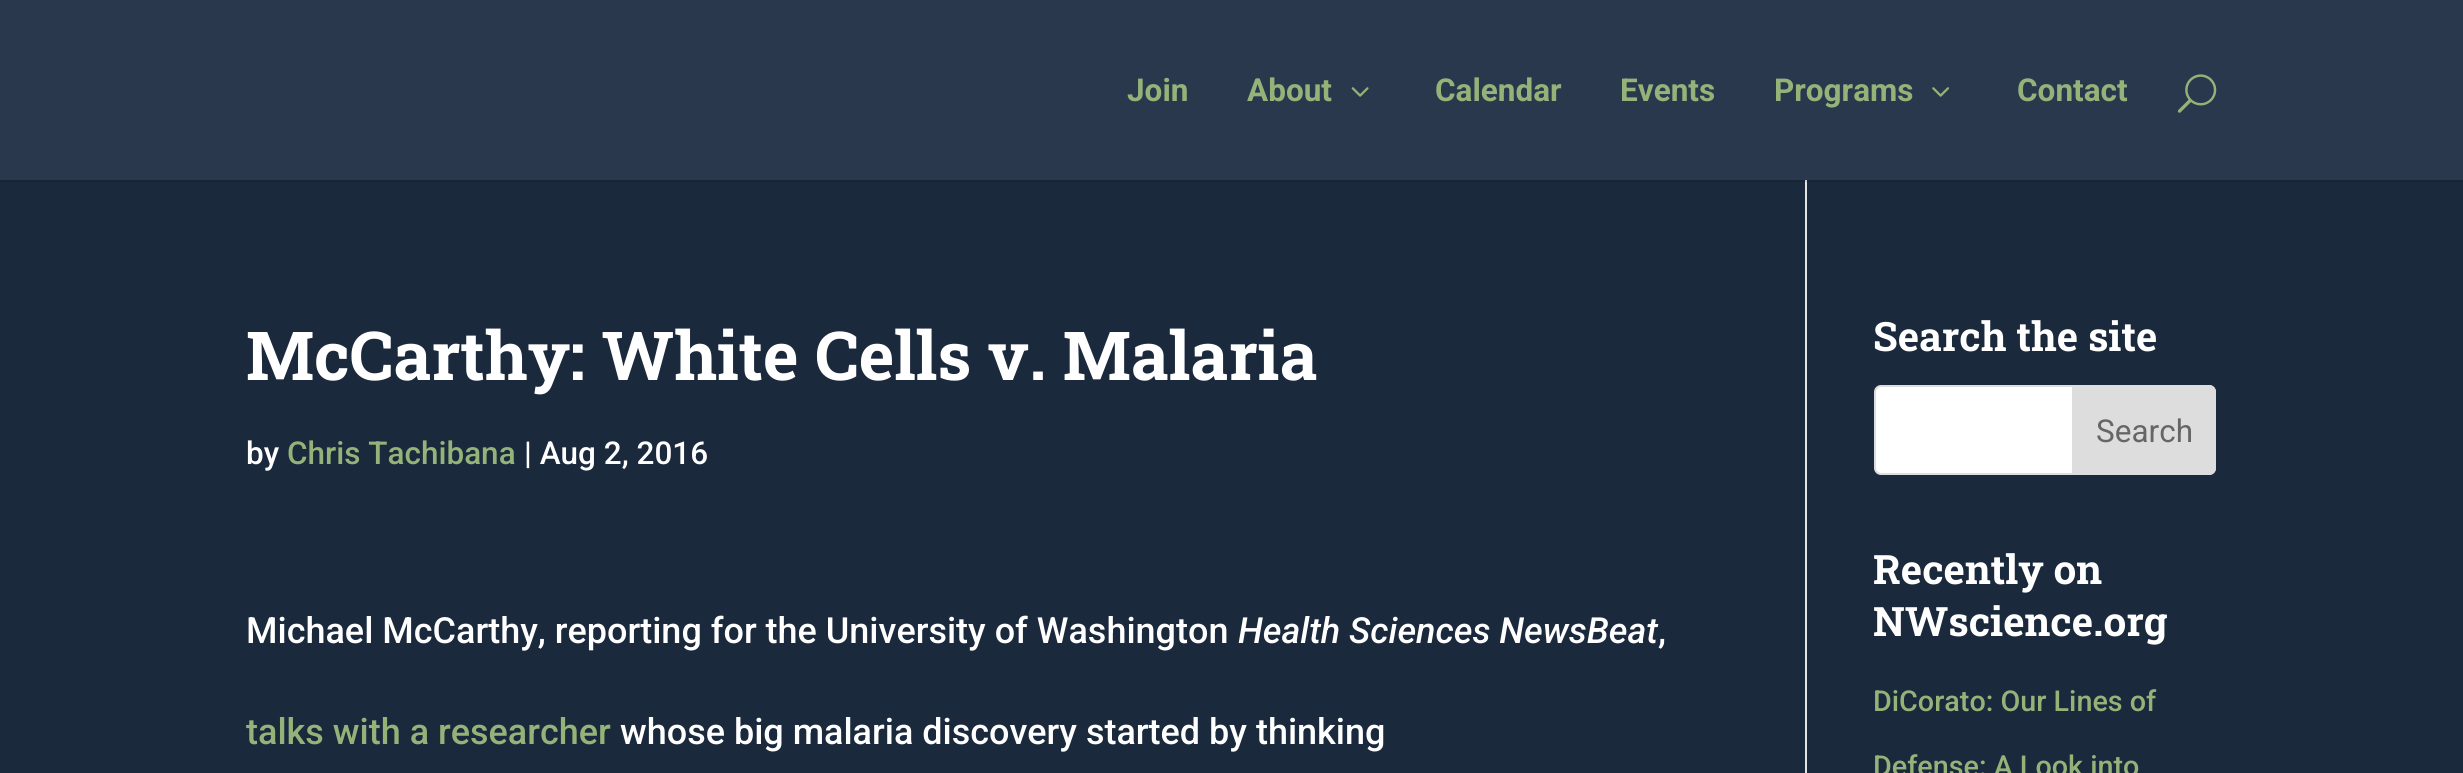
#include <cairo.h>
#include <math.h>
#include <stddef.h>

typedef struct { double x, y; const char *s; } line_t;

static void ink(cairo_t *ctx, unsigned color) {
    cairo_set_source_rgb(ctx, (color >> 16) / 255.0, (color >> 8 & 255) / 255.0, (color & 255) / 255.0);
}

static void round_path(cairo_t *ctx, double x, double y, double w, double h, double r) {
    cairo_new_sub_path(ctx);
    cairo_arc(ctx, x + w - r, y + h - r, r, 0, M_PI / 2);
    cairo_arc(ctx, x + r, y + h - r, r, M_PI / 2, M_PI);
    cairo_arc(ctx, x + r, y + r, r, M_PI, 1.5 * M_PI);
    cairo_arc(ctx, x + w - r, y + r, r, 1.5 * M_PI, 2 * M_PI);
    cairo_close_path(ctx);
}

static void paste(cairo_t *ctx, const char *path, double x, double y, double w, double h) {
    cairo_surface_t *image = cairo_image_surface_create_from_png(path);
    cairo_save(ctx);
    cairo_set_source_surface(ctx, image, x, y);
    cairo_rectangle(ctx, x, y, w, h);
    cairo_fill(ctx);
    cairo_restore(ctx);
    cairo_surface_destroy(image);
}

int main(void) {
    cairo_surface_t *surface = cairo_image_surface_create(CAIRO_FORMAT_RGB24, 2463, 773);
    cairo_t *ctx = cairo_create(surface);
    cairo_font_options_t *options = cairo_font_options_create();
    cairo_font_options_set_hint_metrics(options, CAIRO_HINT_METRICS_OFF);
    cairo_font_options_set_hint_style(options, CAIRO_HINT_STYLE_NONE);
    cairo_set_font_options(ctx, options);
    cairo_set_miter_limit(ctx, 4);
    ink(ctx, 0x1B293D);
    cairo_paint(ctx);
    ink(ctx, 0xE2E2E2);
    cairo_rectangle(ctx, 1805, 180, 2, 593);
    cairo_fill(ctx);
    cairo_set_source_rgba(ctx, 0, 0, 0, 0.1);
    cairo_new_path(ctx);
    cairo_move_to(ctx, 0, 180);
    cairo_line_to(ctx, 0, 182);
    cairo_line_to(ctx, 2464, 182);
    cairo_line_to(ctx, 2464, 2);
    cairo_line_to(ctx, 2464, 180);
    cairo_close_path(ctx);
    cairo_fill(ctx);
    ink(ctx, 0x2A384E);
    cairo_rectangle(ctx, 0, 0, 2463, 180);
    cairo_fill(ctx);
    cairo_select_font_face(ctx, "Roboto", CAIRO_FONT_SLANT_NORMAL, CAIRO_FONT_WEIGHT_BOLD);
    cairo_set_font_size(ctx, 31.5);
    ink(ctx, 0x95B379);
    cairo_move_to(ctx, 1127, 101);
    cairo_show_text(ctx, "Join");
    cairo_move_to(ctx, 1247, 101);
    cairo_show_text(ctx, "About");
    paste(ctx, "media/1.png", 1351, 87, 18, 10);
    {
        static const line_t items[] = {
            {1435, 101, "Calendar"},
            {1620, 101, "Events"},
            {1774, 101, "Programs"},
        };
        for (size_t i = 0; i < sizeof items / sizeof *items; i++) {
            cairo_move_to(ctx, items[i].x, items[i].y);
            cairo_show_text(ctx, items[i].s);
        }
    }
    paste(ctx, "media/2.png", 1932, 87, 17, 10);
    cairo_move_to(ctx, 2017, 101);
    cairo_show_text(ctx, "Contact");
    paste(ctx, "media/3.png", 2177, 74, 40, 39);
    cairo_select_font_face(ctx, "Roboto Slab", CAIRO_FONT_SLANT_NORMAL, CAIRO_FONT_WEIGHT_BOLD);
    cairo_set_font_size(ctx, 67.5);
    ink(ctx, 0xFFFFFF);
    cairo_move_to(ctx, 246, 380);
    cairo_show_text(ctx, "McCarthy: White Cells v. Malaria");
    cairo_select_font_face(ctx, "Roboto Medium", CAIRO_FONT_SLANT_NORMAL, CAIRO_FONT_WEIGHT_NORMAL);
    cairo_set_font_size(ctx, 31.5);
    cairo_move_to(ctx, 246, 464);
    cairo_show_text(ctx, "by");
    ink(ctx, 0x95B379);
    cairo_move_to(ctx, 287, 464);
    cairo_show_text(ctx, "Chris Tachibana");
    ink(ctx, 0xFFFFFF);
    cairo_move_to(ctx, 524, 464);
    cairo_show_text(ctx, "| Aug 2, 2016");
    cairo_set_font_size(ctx, 36);
    cairo_move_to(ctx, 246, 643);
    cairo_show_text(ctx, "Michael McCarthy, reporting for the University of Washington");
    cairo_select_font_face(ctx, "Roboto Medium", CAIRO_FONT_SLANT_ITALIC, CAIRO_FONT_WEIGHT_NORMAL);
    cairo_move_to(ctx, 1238, 643);
    cairo_show_text(ctx, "Health Sciences NewsBeat");
    cairo_select_font_face(ctx, "Roboto Medium", CAIRO_FONT_SLANT_NORMAL, CAIRO_FONT_WEIGHT_NORMAL);
    cairo_move_to(ctx, 1658, 643);
    cairo_show_text(ctx, ",");
    ink(ctx, 0x95B379);
    cairo_move_to(ctx, 246, 744);
    cairo_show_text(ctx, "talks with a researcher");
    ink(ctx, 0xFFFFFF);
    cairo_move_to(ctx, 620, 744);
    cairo_show_text(ctx, "whose big malaria discovery started by thinking");
    cairo_select_font_face(ctx, "Roboto Slab", CAIRO_FONT_SLANT_NORMAL, CAIRO_FONT_WEIGHT_BOLD);
    cairo_set_font_size(ctx, 40.5);
    cairo_move_to(ctx, 1873, 351);
    cairo_show_text(ctx, "Search the site");
    round_path(ctx, 1875, 386, 340, 88, 6);
    cairo_fill_preserve(ctx);
    ink(ctx, 0xDDDDDD);
    cairo_stroke(ctx);
    cairo_new_path(ctx);
    cairo_move_to(ctx, 2073, 386);
    cairo_line_to(ctx, 2209, 386);
    cairo_curve_to(ctx, 2212.5, 386, 2215, 388.5, 2215, 392);
    cairo_line_to(ctx, 2215, 468);
    cairo_curve_to(ctx, 2215, 471.5, 2212.5, 474, 2209, 474);
    cairo_line_to(ctx, 2073, 474);
    cairo_close_path(ctx);
    cairo_fill_preserve(ctx);
    cairo_stroke(ctx);
    cairo_select_font_face(ctx, "Roboto", CAIRO_FONT_SLANT_NORMAL, CAIRO_FONT_WEIGHT_NORMAL);
    cairo_set_font_size(ctx, 31.5);
    ink(ctx, 0x666666);
    cairo_move_to(ctx, 2096, 442);
    cairo_show_text(ctx, "Search");
    cairo_select_font_face(ctx, "Roboto Slab", CAIRO_FONT_SLANT_NORMAL, CAIRO_FONT_WEIGHT_BOLD);
    cairo_set_font_size(ctx, 40.5);
    ink(ctx, 0xFFFFFF);
    cairo_move_to(ctx, 1873, 584);
    cairo_show_text(ctx, "Recently on");
    cairo_move_to(ctx, 1873, 636);
    cairo_show_text(ctx, "NWscience.org");
    cairo_select_font_face(ctx, "Roboto Medium", CAIRO_FONT_SLANT_NORMAL, CAIRO_FONT_WEIGHT_NORMAL);
    cairo_set_font_size(ctx, 28.75);
    ink(ctx, 0x95B379);
    cairo_move_to(ctx, 1873, 711);
    cairo_show_text(ctx, "DiCorato: Our Lines of");
    cairo_move_to(ctx, 1873, 776);
    cairo_show_text(ctx, "Defense: A Look into");
    cairo_surface_write_to_png(surface, "image.png");
    cairo_font_options_destroy(options);
    cairo_destroy(ctx);
    cairo_surface_destroy(surface);
    return 0;
}
